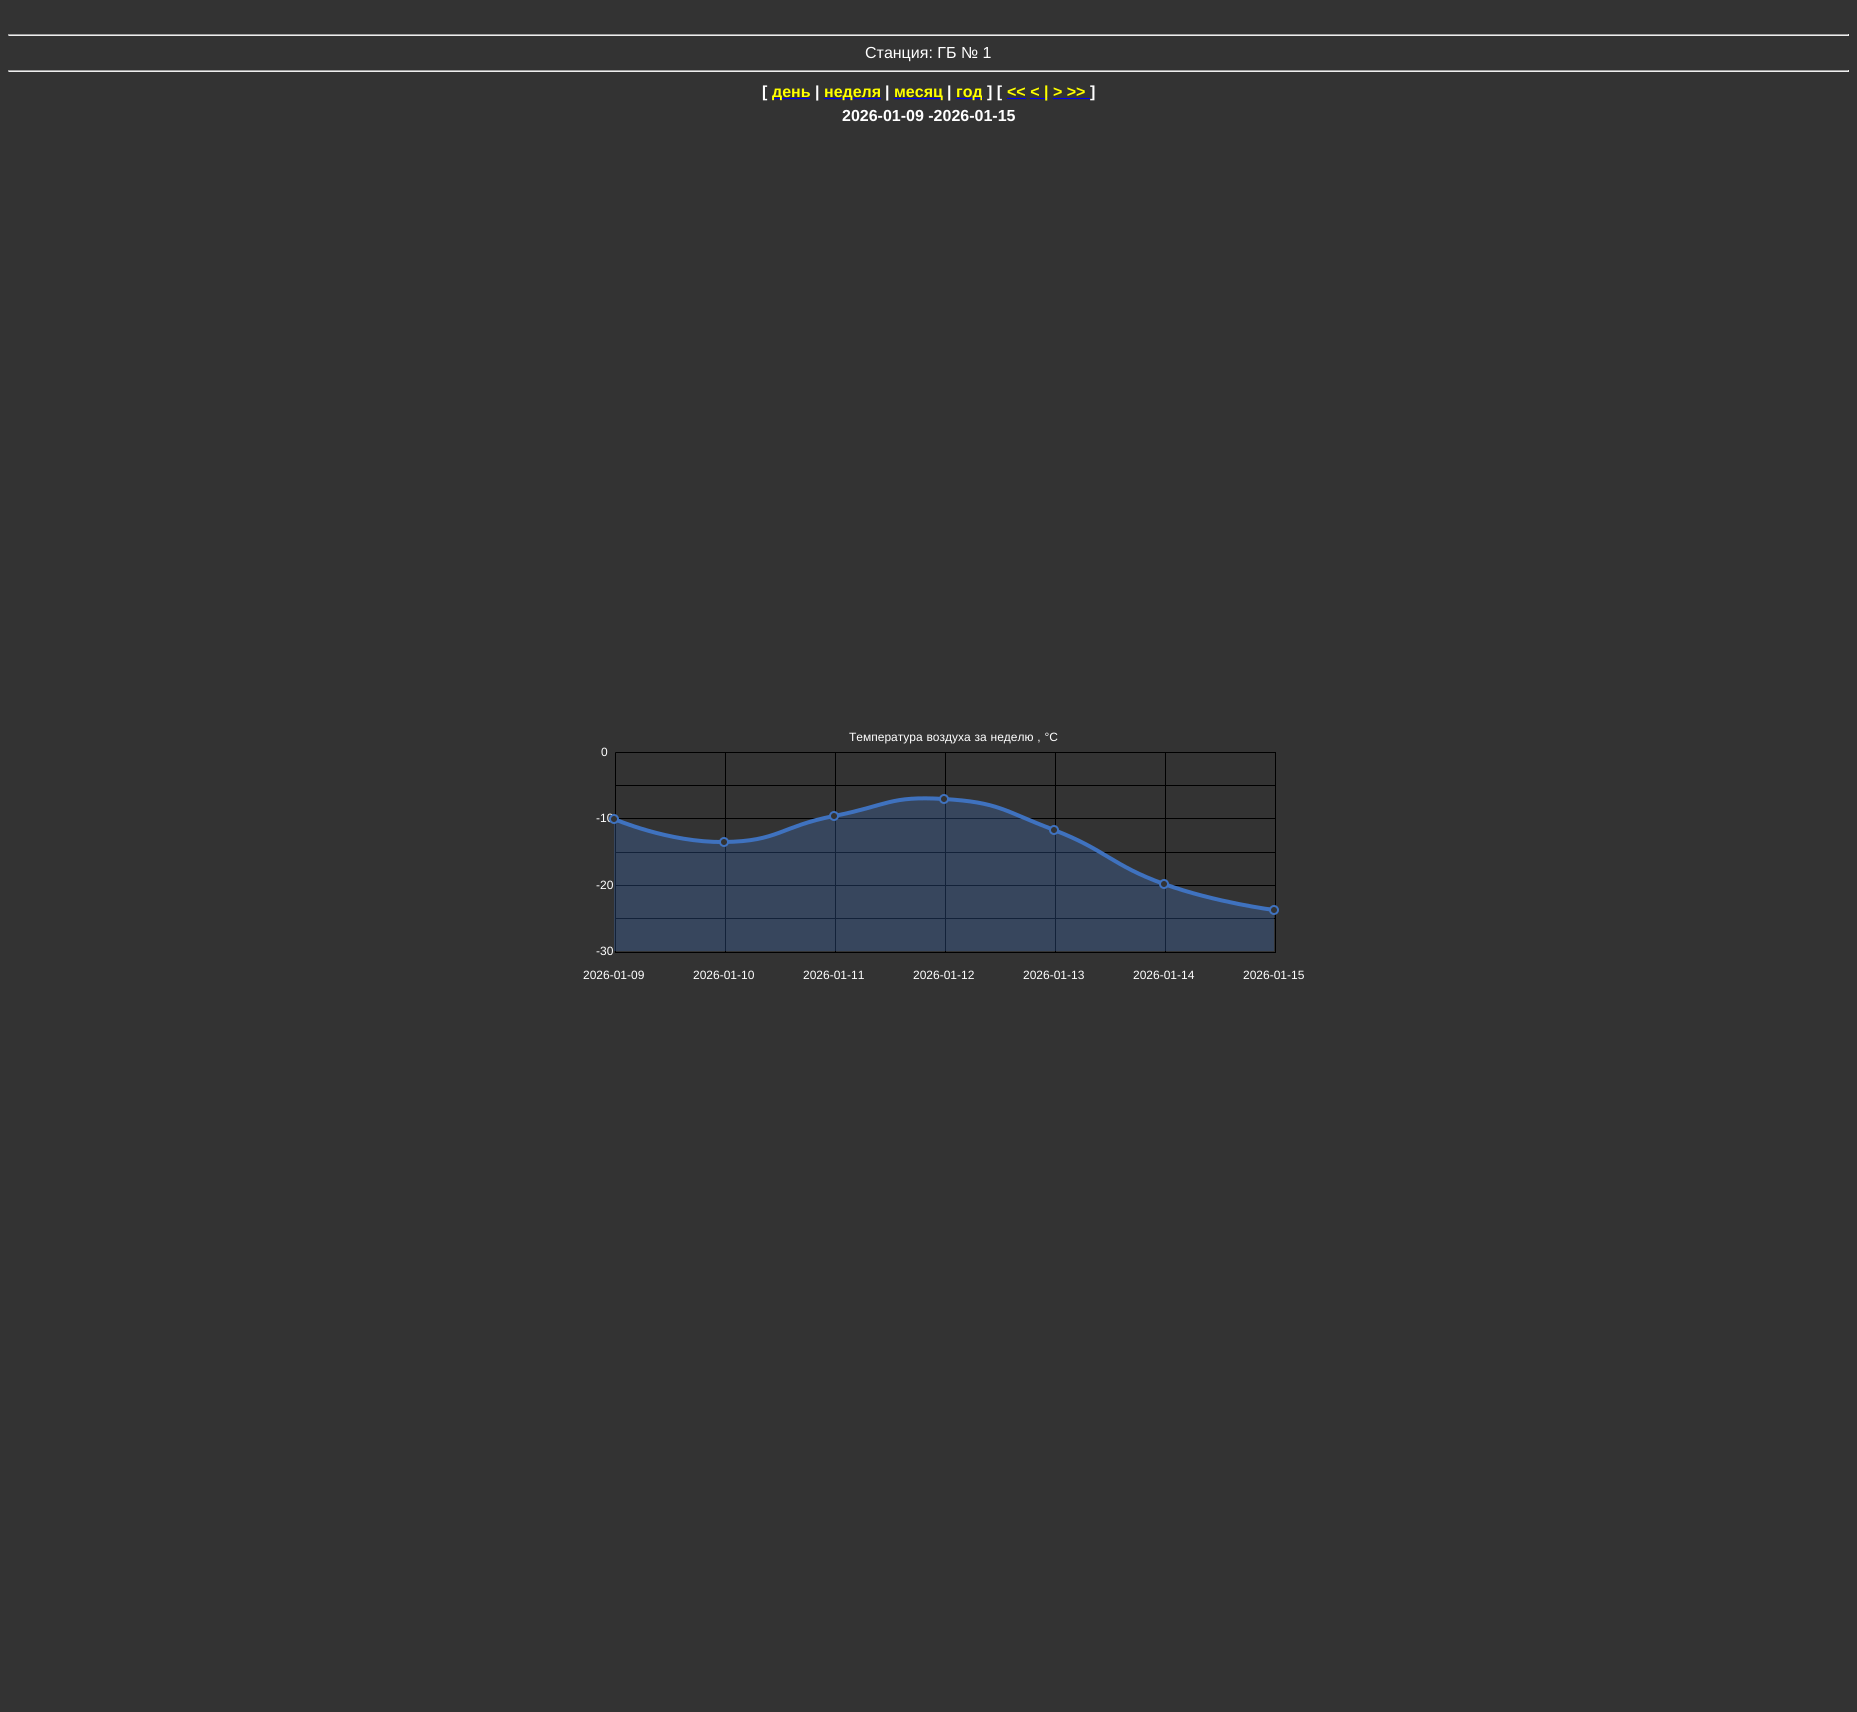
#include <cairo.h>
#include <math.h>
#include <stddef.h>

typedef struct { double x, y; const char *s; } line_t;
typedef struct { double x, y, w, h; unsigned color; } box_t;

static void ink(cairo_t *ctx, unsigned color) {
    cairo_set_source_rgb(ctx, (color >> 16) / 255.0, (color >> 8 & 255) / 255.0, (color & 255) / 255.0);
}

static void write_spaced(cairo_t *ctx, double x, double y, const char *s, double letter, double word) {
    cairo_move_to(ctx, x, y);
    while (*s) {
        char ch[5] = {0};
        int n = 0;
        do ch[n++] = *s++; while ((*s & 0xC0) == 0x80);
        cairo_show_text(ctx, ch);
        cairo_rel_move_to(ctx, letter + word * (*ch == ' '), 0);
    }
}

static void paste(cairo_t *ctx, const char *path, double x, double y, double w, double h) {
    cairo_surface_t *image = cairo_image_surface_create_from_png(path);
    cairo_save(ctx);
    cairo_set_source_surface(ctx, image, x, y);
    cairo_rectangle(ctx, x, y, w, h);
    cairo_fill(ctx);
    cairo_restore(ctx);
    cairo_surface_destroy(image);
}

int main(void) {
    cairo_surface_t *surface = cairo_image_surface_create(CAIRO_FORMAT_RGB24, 1857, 1712);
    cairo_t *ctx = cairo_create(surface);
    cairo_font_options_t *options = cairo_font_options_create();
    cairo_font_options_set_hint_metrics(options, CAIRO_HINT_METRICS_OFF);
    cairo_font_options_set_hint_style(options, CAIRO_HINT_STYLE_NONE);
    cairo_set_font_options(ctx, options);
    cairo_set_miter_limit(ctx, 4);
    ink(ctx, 0x333333);
    cairo_paint(ctx);
    {
        static const box_t items[] = {
            {8, 34, 1841, 1, 0x9F9F9F},
            {1848, 34, 1, 2, 0xEEEEEE},
            {8, 35, 1841, 1, 0xEEEEEE},
            {8, 34, 1, 2, 0x9F9F9F},
        };
        for (size_t i = 0; i < sizeof items / sizeof *items; i++) {
            ink(ctx, items[i].color);
            cairo_rectangle(ctx, items[i].x, items[i].y, items[i].w, items[i].h);
            cairo_fill(ctx);
        }
    }
    cairo_select_font_face(ctx, "Liberation Sans", CAIRO_FONT_SLANT_NORMAL, CAIRO_FONT_WEIGHT_NORMAL);
    cairo_set_font_size(ctx, 16);
    ink(ctx, 0xFFFFFF);
    cairo_move_to(ctx, 865, 58);
    cairo_show_text(ctx, "Станция: ГБ № 1");
    {
        static const box_t items[] = {
            {8, 70, 1841, 1, 0x9F9F9F},
            {1848, 70, 1, 2, 0xEEEEEE},
            {8, 71, 1841, 1, 0xEEEEEE},
            {8, 70, 1, 2, 0x9F9F9F},
        };
        for (size_t i = 0; i < sizeof items / sizeof *items; i++) {
            ink(ctx, items[i].color);
            cairo_rectangle(ctx, items[i].x, items[i].y, items[i].w, items[i].h);
            cairo_fill(ctx);
        }
    }
    cairo_select_font_face(ctx, "Liberation Sans", CAIRO_FONT_SLANT_NORMAL, CAIRO_FONT_WEIGHT_BOLD);
    ink(ctx, 0xFFFFFF);
    cairo_move_to(ctx, 762, 97);
    cairo_show_text(ctx, "[");
    ink(ctx, 0x0000EE);
    cairo_rectangle(ctx, 772, 98, 38, 1);
    cairo_fill(ctx);
    ink(ctx, 0xFFFF00);
    cairo_move_to(ctx, 772, 97);
    cairo_show_text(ctx, "день");
    ink(ctx, 0xFFFFFF);
    cairo_move_to(ctx, 815, 97);
    cairo_show_text(ctx, "|");
    ink(ctx, 0x0000EE);
    cairo_rectangle(ctx, 824, 98, 57, 1);
    cairo_fill(ctx);
    ink(ctx, 0xFFFF00);
    cairo_move_to(ctx, 824, 97);
    cairo_show_text(ctx, "неделя");
    ink(ctx, 0xFFFFFF);
    cairo_move_to(ctx, 885, 97);
    cairo_show_text(ctx, "|");
    ink(ctx, 0x0000EE);
    cairo_rectangle(ctx, 894, 98, 49, 1);
    cairo_fill(ctx);
    ink(ctx, 0xFFFF00);
    cairo_move_to(ctx, 894, 97);
    cairo_show_text(ctx, "месяц");
    ink(ctx, 0xFFFFFF);
    cairo_move_to(ctx, 947, 97);
    cairo_show_text(ctx, "|");
    ink(ctx, 0x0000EE);
    cairo_rectangle(ctx, 956, 98, 27, 1);
    cairo_fill(ctx);
    ink(ctx, 0xFFFF00);
    cairo_move_to(ctx, 956, 97);
    cairo_show_text(ctx, "год");
    ink(ctx, 0xFFFFFF);
    cairo_move_to(ctx, 987, 97);
    cairo_show_text(ctx, "] [");
    ink(ctx, 0xFFFF00);
    cairo_move_to(ctx, 1007, 97);
    cairo_show_text(ctx, "<< <");
    ink(ctx, 0x0000EE);
    cairo_rectangle(ctx, 1007, 98, 19, 1);
    cairo_fill(ctx);
    cairo_rectangle(ctx, 1030, 98, 18, 1);
    cairo_fill(ctx);
    ink(ctx, 0xFFFF00);
    cairo_move_to(ctx, 1044, 97);
    cairo_show_text(ctx, "| > >>");
    ink(ctx, 0x0000EE);
    cairo_rectangle(ctx, 1053, 98, 37, 1);
    cairo_fill(ctx);
    ink(ctx, 0xFFFFFF);
    cairo_move_to(ctx, 1090, 97);
    cairo_show_text(ctx, "]");
    cairo_move_to(ctx, 842, 121);
    cairo_show_text(ctx, "2026-01-09 -2026-01-15");
    cairo_select_font_face(ctx, "Liberation Sans", CAIRO_FONT_SLANT_NORMAL, CAIRO_FONT_WEIGHT_NORMAL);
    cairo_set_font_size(ctx, 12);
    write_spaced(ctx, 849, 741, "Температура воздуха за неделю , °C", 0, 0.5);
    {
        static const line_t items[] = {
            {601, 756, "0"},
            {596, 822, "-10"},
            {596, 889, "-20"},
            {596, 955, "-30"},
        };
        for (size_t i = 0; i < sizeof items / sizeof *items; i++) {
            cairo_move_to(ctx, items[i].x, items[i].y);
            cairo_show_text(ctx, items[i].s);
        }
    }
    paste(ctx, "media/1.png", 609, 752, 670, 201);
    {
        static const line_t items[] = {
            {583, 979, "2026-01-09"},
            {693, 979, "2026-01-10"},
            {803, 979, "2026-01-11"},
            {913, 979, "2026-01-12"},
            {1023, 979, "2026-01-13"},
            {1133, 979, "2026-01-14"},
            {1243, 979, "2026-01-15"},
        };
        for (size_t i = 0; i < sizeof items / sizeof *items; i++) {
            cairo_move_to(ctx, items[i].x, items[i].y);
            cairo_show_text(ctx, items[i].s);
        }
    }
    cairo_surface_write_to_png(surface, "image.png");
    cairo_font_options_destroy(options);
    cairo_destroy(ctx);
    cairo_surface_destroy(surface);
    return 0;
}
